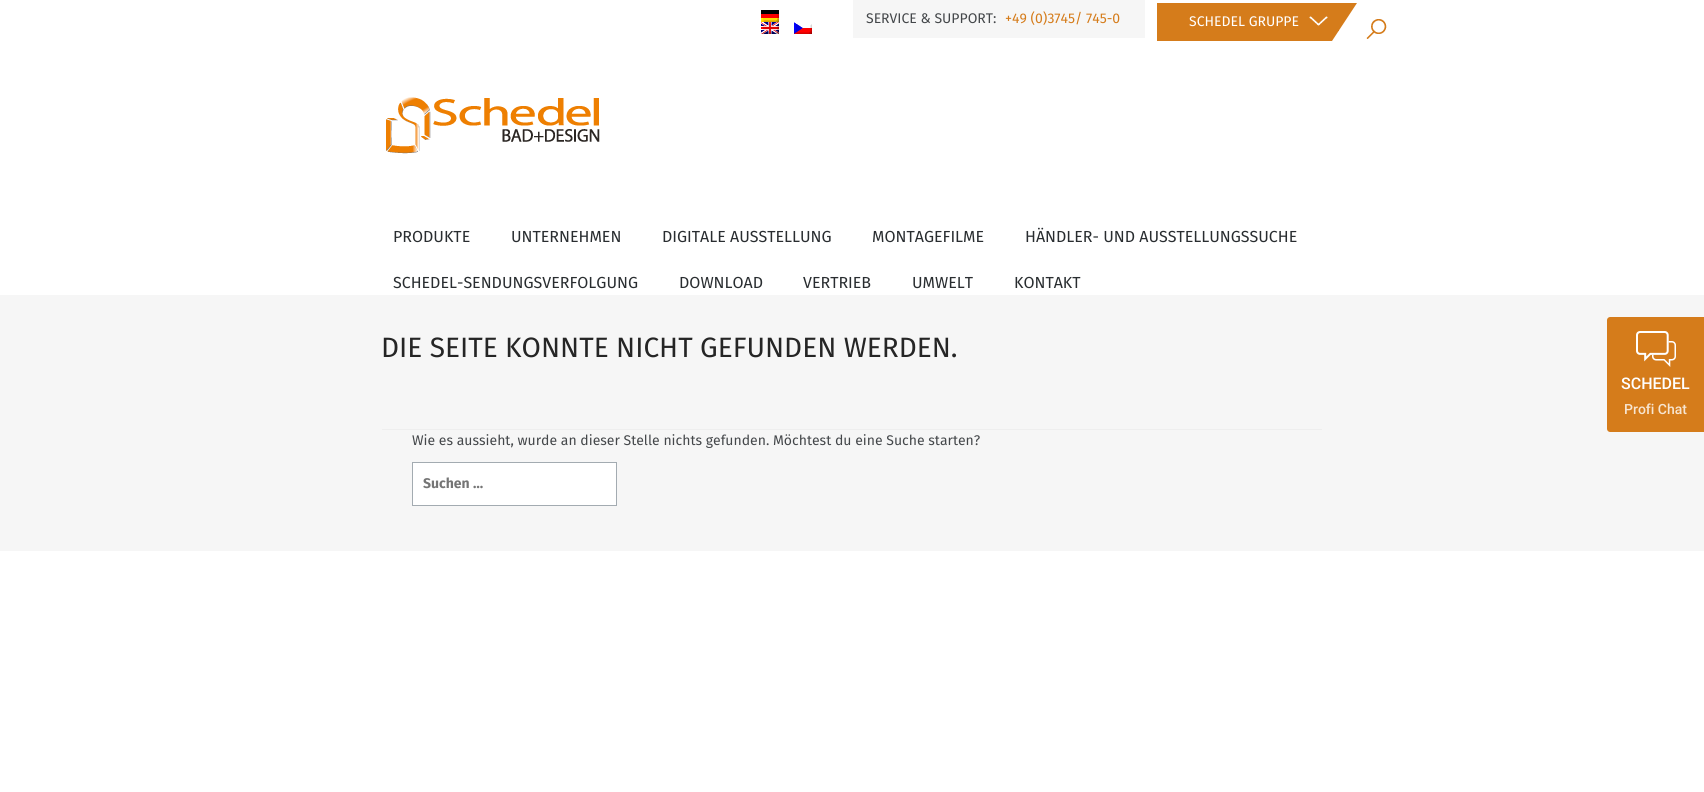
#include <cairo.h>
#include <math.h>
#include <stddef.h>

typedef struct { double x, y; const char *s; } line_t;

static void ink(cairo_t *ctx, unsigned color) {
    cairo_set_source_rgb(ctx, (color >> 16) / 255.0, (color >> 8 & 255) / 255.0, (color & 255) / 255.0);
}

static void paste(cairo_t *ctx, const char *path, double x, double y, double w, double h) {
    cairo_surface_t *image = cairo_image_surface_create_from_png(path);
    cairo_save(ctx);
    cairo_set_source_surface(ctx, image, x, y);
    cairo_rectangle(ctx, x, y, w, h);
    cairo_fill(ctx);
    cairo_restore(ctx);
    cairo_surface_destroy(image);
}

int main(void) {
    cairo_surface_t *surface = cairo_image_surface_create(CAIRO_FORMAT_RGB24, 1704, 792);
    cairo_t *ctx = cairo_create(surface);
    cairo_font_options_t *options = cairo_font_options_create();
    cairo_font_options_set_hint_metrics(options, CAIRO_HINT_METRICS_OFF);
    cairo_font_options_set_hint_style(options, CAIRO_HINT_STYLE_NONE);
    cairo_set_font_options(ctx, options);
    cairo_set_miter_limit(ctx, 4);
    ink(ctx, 0xFFFFFF);
    cairo_paint(ctx);
    paste(ctx, "media/1.png", 761, 10, 18, 12);
    paste(ctx, "media/2.png", 761, 22, 18, 12);
    paste(ctx, "media/3.png", 794, 22, 18, 12);
    ink(ctx, 0xF6F6F6);
    cairo_rectangle(ctx, 853, 0, 292, 38);
    cairo_fill(ctx);
    cairo_select_font_face(ctx, "Fira Sans", CAIRO_FONT_SLANT_NORMAL, CAIRO_FONT_WEIGHT_NORMAL);
    cairo_set_font_size(ctx, 14);
    ink(ctx, 0x44474A);
    cairo_move_to(ctx, 866, 23);
    cairo_show_text(ctx, "SERVICE & SUPPORT:");
    ink(ctx, 0xD57C1B);
    cairo_move_to(ctx, 1005, 23);
    cairo_show_text(ctx, "+49 (0)3745/ 745-0");
    cairo_rectangle(ctx, 1157, 3, 175, 38);
    cairo_fill(ctx);
    ink(ctx, 0xFFFFFF);
    cairo_move_to(ctx, 1189, 26);
    cairo_show_text(ctx, "SCHEDEL GRUPPE");
    ink(ctx, 0xD57C1B);
    cairo_rectangle(ctx, 1332, 11, 7, 20);
    cairo_fill(ctx);
    paste(ctx, "media/4.png", 1309, 16, 19, 10);
    cairo_new_path(ctx);
    cairo_move_to(ctx, 1332, 41);
    cairo_line_to(ctx, 1332, 3);
    cairo_line_to(ctx, 1357, 3);
    cairo_close_path(ctx);
    cairo_fill(ctx);
    paste(ctx, "media/5.png", 1366, 19, 21, 20);
    paste(ctx, "media/6.png", 386, 97, 214, 57);
    cairo_set_font_size(ctx, 16);
    ink(ctx, 0x292D30);
    {
        static const line_t items[] = {
            {393, 242, "PRODUKTE"},
            {511, 242, "UNTERNEHMEN"},
            {662, 242, "DIGITALE AUSSTELLUNG"},
            {872, 242, "MONTAGEFILME"},
            {1025, 242, "HÄNDLER- UND AUSSTELLUNGSSUCHE"},
            {393, 288, "SCHEDEL-SENDUNGSVERFOLGUNG"},
            {679, 288, "DOWNLOAD"},
            {803, 288, "VERTRIEB"},
            {912, 288, "UMWELT"},
            {1014, 288, "KONTAKT"},
        };
        for (size_t i = 0; i < sizeof items / sizeof *items; i++) {
            cairo_move_to(ctx, items[i].x, items[i].y);
            cairo_show_text(ctx, items[i].s);
        }
    }
    ink(ctx, 0xF6F6F6);
    cairo_rectangle(ctx, 0, 295, 1704, 256);
    cairo_fill(ctx);
    ink(ctx, 0xEEEEEE);
    cairo_rectangle(ctx, 382, 429, 940, 1);
    cairo_fill(ctx);
    cairo_set_font_size(ctx, 28);
    ink(ctx, 0x252525);
    cairo_move_to(ctx, 381, 357);
    cairo_show_text(ctx, "DIE SEITE KONNTE NICHT GEFUNDEN WERDEN.");
    cairo_set_font_size(ctx, 14);
    ink(ctx, 0x44474A);
    cairo_move_to(ctx, 412, 445);
    cairo_show_text(ctx, "Wie es aussieht, wurde an dieser Stelle nichts gefunden. Möchtest du eine Suche starten?");
    ink(ctx, 0xFFFFFF);
    cairo_rectangle(ctx, 412.5, 462.5, 204, 43);
    cairo_fill_preserve(ctx);
    ink(ctx, 0xA3ABB1);
    cairo_set_line_width(ctx, 1);
    cairo_stroke(ctx);
    cairo_select_font_face(ctx, "Fira Sans", CAIRO_FONT_SLANT_NORMAL, CAIRO_FONT_WEIGHT_BOLD);
    ink(ctx, 0x757575);
    cairo_move_to(ctx, 423, 488);
    cairo_show_text(ctx, "Suchen …");
    ink(ctx, 0xD57C1B);
    cairo_new_path(ctx);
    cairo_move_to(ctx, 1610, 317);
    cairo_line_to(ctx, 1704, 317);
    cairo_line_to(ctx, 1704, 432);
    cairo_line_to(ctx, 1610, 432);
    cairo_curve_to(ctx, 1608.5, 432, 1607, 430.5, 1607, 429);
    cairo_line_to(ctx, 1607, 320);
    cairo_curve_to(ctx, 1607, 318.5, 1608.5, 317, 1610, 317);
    cairo_close_path(ctx);
    cairo_fill(ctx);
    paste(ctx, "media/7.png", 1636, 331, 40, 36);
    cairo_select_font_face(ctx, "Roboto Medium", CAIRO_FONT_SLANT_NORMAL, CAIRO_FONT_WEIGHT_NORMAL);
    cairo_set_font_size(ctx, 16);
    ink(ctx, 0xFFFFFF);
    cairo_move_to(ctx, 1621, 389);
    cairo_show_text(ctx, "SCHEDEL");
    cairo_set_font_size(ctx, 14);
    ink(ctx, 0xF7E5D1);
    cairo_move_to(ctx, 1624, 414);
    cairo_show_text(ctx, "Profi Chat");
    cairo_surface_write_to_png(surface, "image.png");
    cairo_font_options_destroy(options);
    cairo_destroy(ctx);
    cairo_surface_destroy(surface);
    return 0;
}
